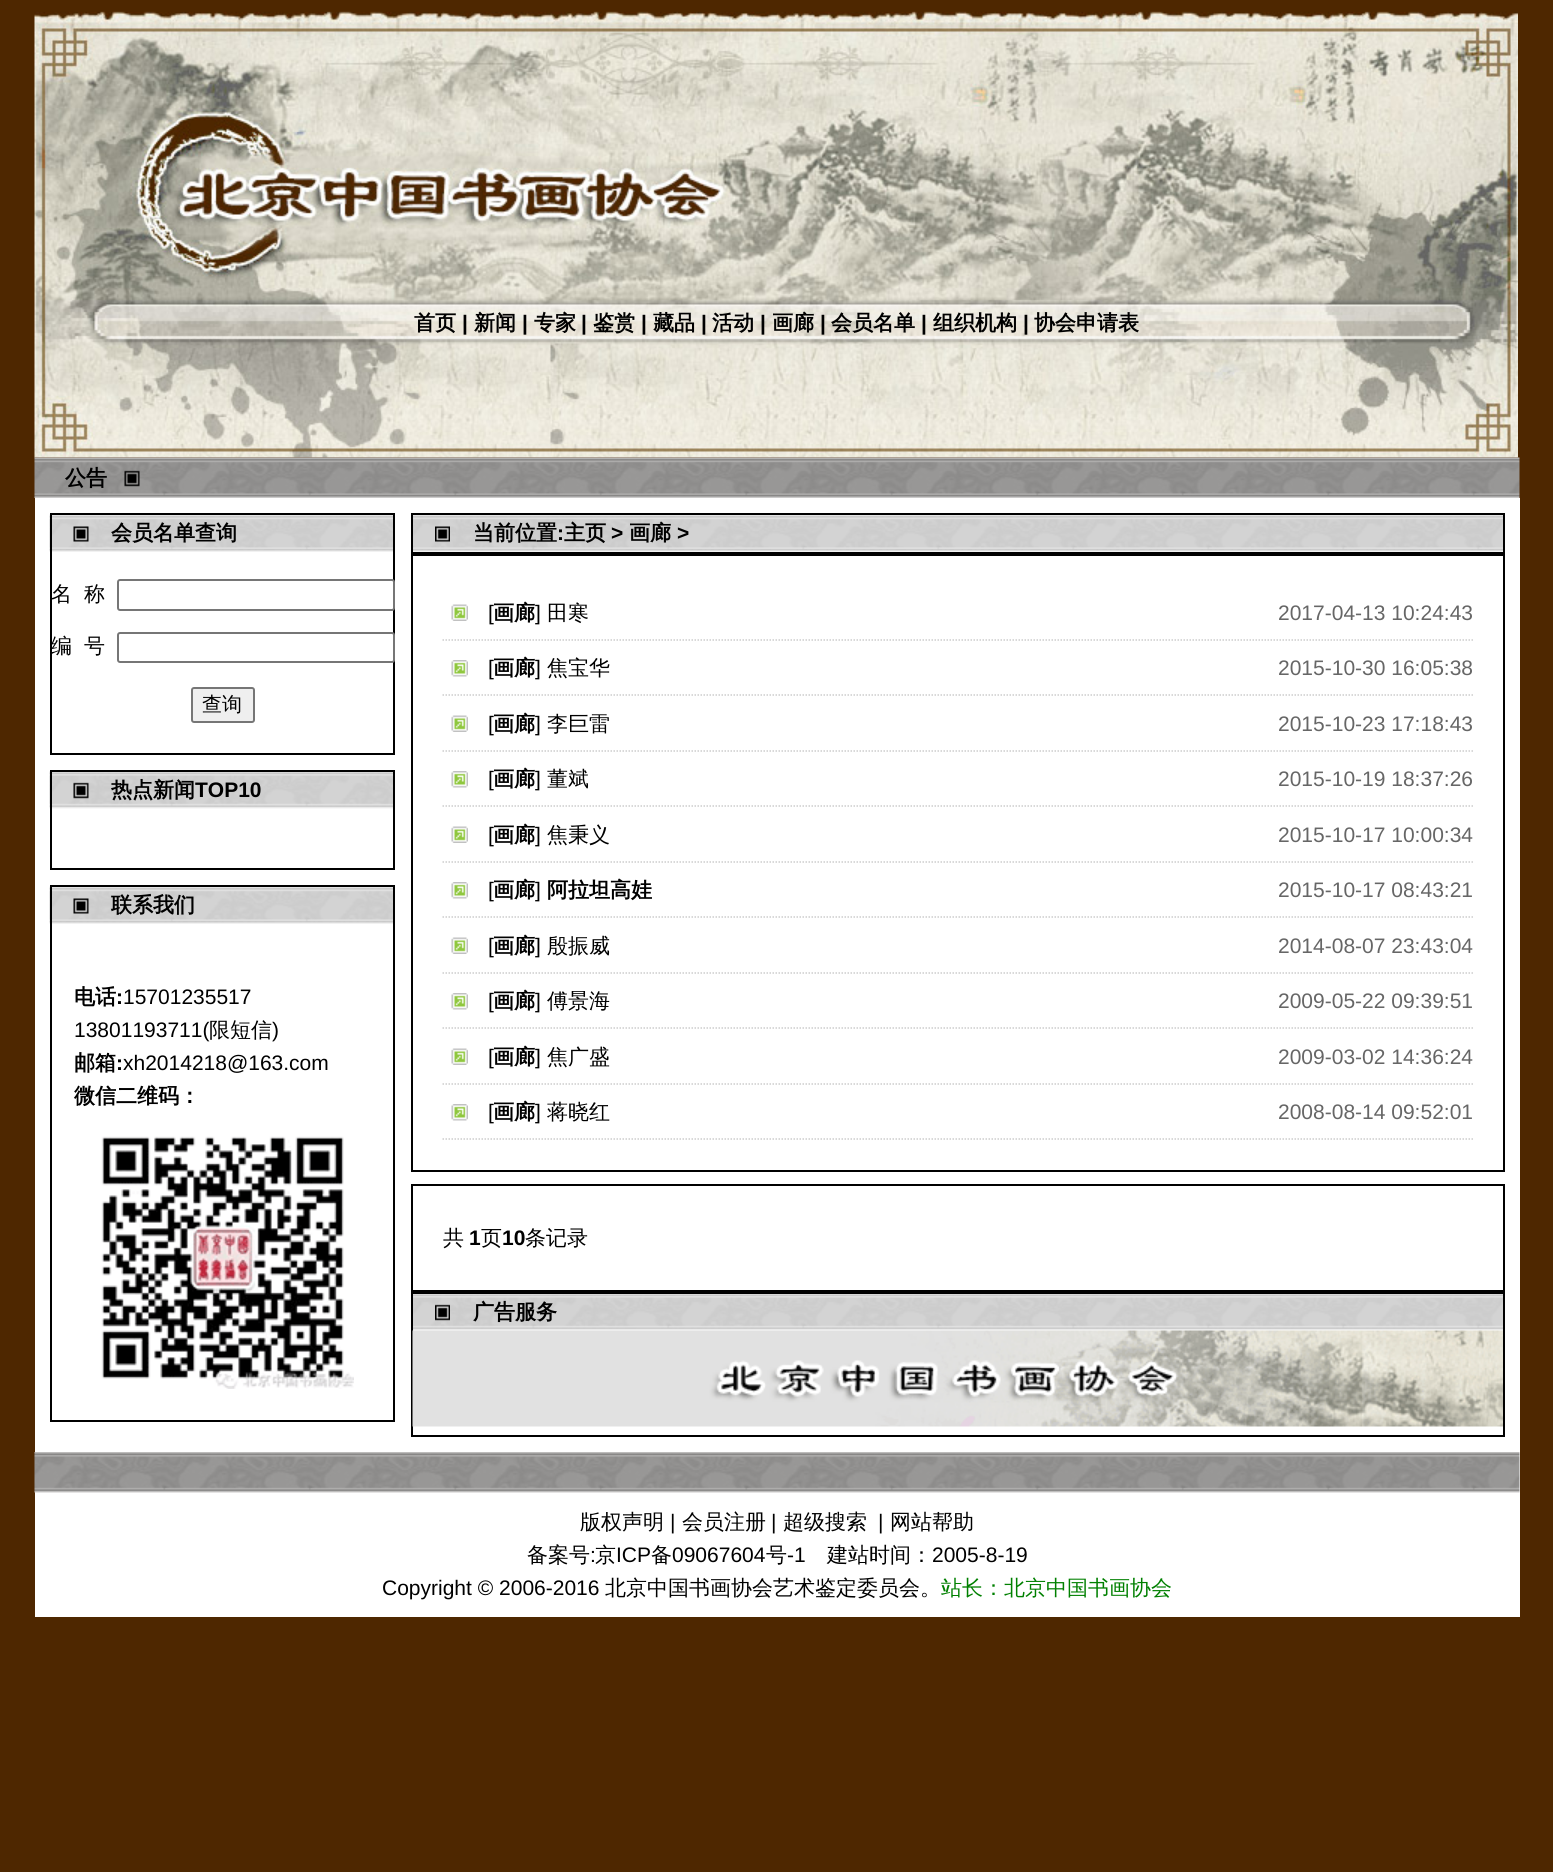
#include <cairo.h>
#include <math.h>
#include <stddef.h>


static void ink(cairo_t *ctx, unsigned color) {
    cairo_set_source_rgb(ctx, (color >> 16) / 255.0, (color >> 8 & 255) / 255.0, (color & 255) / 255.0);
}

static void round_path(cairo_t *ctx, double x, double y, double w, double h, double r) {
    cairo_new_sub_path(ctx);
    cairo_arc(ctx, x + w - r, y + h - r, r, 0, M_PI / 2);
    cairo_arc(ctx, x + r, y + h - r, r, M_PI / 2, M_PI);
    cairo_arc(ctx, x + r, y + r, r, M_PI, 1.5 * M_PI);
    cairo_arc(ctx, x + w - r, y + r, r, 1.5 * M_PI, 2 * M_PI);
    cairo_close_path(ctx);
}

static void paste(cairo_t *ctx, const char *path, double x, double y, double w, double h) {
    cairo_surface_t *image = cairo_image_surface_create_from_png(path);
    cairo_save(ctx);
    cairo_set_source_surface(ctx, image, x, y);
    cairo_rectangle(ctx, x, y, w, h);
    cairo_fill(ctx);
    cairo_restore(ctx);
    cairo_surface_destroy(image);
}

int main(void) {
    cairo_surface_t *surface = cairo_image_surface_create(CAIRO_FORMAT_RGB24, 1553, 1872);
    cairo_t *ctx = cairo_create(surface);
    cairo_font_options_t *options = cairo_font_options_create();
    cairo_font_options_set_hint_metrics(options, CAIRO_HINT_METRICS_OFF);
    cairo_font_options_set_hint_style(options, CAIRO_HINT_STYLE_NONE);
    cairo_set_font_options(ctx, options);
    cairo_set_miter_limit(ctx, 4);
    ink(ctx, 0x4E2700);
    cairo_paint(ctx);
    paste(ctx, "media/1.png", 34, 11, 1484, 447);
    cairo_select_font_face(ctx, "WenQuanYi Zen Hei", CAIRO_FONT_SLANT_NORMAL, CAIRO_FONT_WEIGHT_BOLD);
    cairo_set_font_size(ctx, 21);
    ink(ctx, 0x000000);
    cairo_move_to(ctx, 414, 330);
    cairo_show_text(ctx, "首页");
    cairo_select_font_face(ctx, "Liberation Sans", CAIRO_FONT_SLANT_NORMAL, CAIRO_FONT_WEIGHT_BOLD);
    cairo_move_to(ctx, 462, 330);
    cairo_show_text(ctx, "|");
    cairo_select_font_face(ctx, "WenQuanYi Zen Hei", CAIRO_FONT_SLANT_NORMAL, CAIRO_FONT_WEIGHT_BOLD);
    cairo_move_to(ctx, 474, 330);
    cairo_show_text(ctx, "新闻");
    cairo_select_font_face(ctx, "Liberation Sans", CAIRO_FONT_SLANT_NORMAL, CAIRO_FONT_WEIGHT_BOLD);
    cairo_move_to(ctx, 522, 330);
    cairo_show_text(ctx, "|");
    cairo_select_font_face(ctx, "WenQuanYi Zen Hei", CAIRO_FONT_SLANT_NORMAL, CAIRO_FONT_WEIGHT_BOLD);
    cairo_move_to(ctx, 534, 330);
    cairo_show_text(ctx, "专家");
    cairo_select_font_face(ctx, "Liberation Sans", CAIRO_FONT_SLANT_NORMAL, CAIRO_FONT_WEIGHT_BOLD);
    cairo_move_to(ctx, 581, 330);
    cairo_show_text(ctx, "|");
    cairo_select_font_face(ctx, "WenQuanYi Zen Hei", CAIRO_FONT_SLANT_NORMAL, CAIRO_FONT_WEIGHT_BOLD);
    cairo_move_to(ctx, 593, 330);
    cairo_show_text(ctx, "鉴赏");
    cairo_select_font_face(ctx, "Liberation Sans", CAIRO_FONT_SLANT_NORMAL, CAIRO_FONT_WEIGHT_BOLD);
    cairo_move_to(ctx, 641, 330);
    cairo_show_text(ctx, "|");
    cairo_select_font_face(ctx, "WenQuanYi Zen Hei", CAIRO_FONT_SLANT_NORMAL, CAIRO_FONT_WEIGHT_BOLD);
    cairo_move_to(ctx, 653, 330);
    cairo_show_text(ctx, "藏品");
    cairo_select_font_face(ctx, "Liberation Sans", CAIRO_FONT_SLANT_NORMAL, CAIRO_FONT_WEIGHT_BOLD);
    cairo_move_to(ctx, 701, 330);
    cairo_show_text(ctx, "|");
    cairo_select_font_face(ctx, "WenQuanYi Zen Hei", CAIRO_FONT_SLANT_NORMAL, CAIRO_FONT_WEIGHT_BOLD);
    cairo_move_to(ctx, 712, 330);
    cairo_show_text(ctx, "活动");
    cairo_select_font_face(ctx, "Liberation Sans", CAIRO_FONT_SLANT_NORMAL, CAIRO_FONT_WEIGHT_BOLD);
    cairo_move_to(ctx, 760, 330);
    cairo_show_text(ctx, "|");
    cairo_select_font_face(ctx, "WenQuanYi Zen Hei", CAIRO_FONT_SLANT_NORMAL, CAIRO_FONT_WEIGHT_BOLD);
    cairo_move_to(ctx, 772, 330);
    cairo_show_text(ctx, "画廊");
    cairo_select_font_face(ctx, "Liberation Sans", CAIRO_FONT_SLANT_NORMAL, CAIRO_FONT_WEIGHT_BOLD);
    cairo_move_to(ctx, 820, 330);
    cairo_show_text(ctx, "|");
    cairo_select_font_face(ctx, "WenQuanYi Zen Hei", CAIRO_FONT_SLANT_NORMAL, CAIRO_FONT_WEIGHT_BOLD);
    cairo_move_to(ctx, 831, 330);
    cairo_show_text(ctx, "会员名单");
    cairo_select_font_face(ctx, "Liberation Sans", CAIRO_FONT_SLANT_NORMAL, CAIRO_FONT_WEIGHT_BOLD);
    cairo_move_to(ctx, 921, 330);
    cairo_show_text(ctx, "|");
    cairo_select_font_face(ctx, "WenQuanYi Zen Hei", CAIRO_FONT_SLANT_NORMAL, CAIRO_FONT_WEIGHT_BOLD);
    cairo_move_to(ctx, 933, 330);
    cairo_show_text(ctx, "组织机构");
    cairo_select_font_face(ctx, "Liberation Sans", CAIRO_FONT_SLANT_NORMAL, CAIRO_FONT_WEIGHT_BOLD);
    cairo_move_to(ctx, 1023, 330);
    cairo_show_text(ctx, "|");
    cairo_select_font_face(ctx, "WenQuanYi Zen Hei", CAIRO_FONT_SLANT_NORMAL, CAIRO_FONT_WEIGHT_BOLD);
    cairo_move_to(ctx, 1034, 330);
    cairo_show_text(ctx, "协会申请表");
    paste(ctx, "media/2.png", 34, 457, 1486, 41);
    paste(ctx, "media/3.png", 124, 470, 16, 17);
    cairo_move_to(ctx, 65, 485);
    cairo_show_text(ctx, "公告");
    ink(ctx, 0xFFFFFF);
    cairo_rectangle(ctx, 35, 498, 1485, 1119);
    cairo_fill(ctx);
    paste(ctx, "media/4.png", 49, 514, 344, 38);
    cairo_rectangle(ctx, 51, 514, 343, 240);
    ink(ctx, 0x000000);
    cairo_stroke(ctx);
    paste(ctx, "media/5.png", 73, 526, 16, 16);
    cairo_move_to(ctx, 111, 540);
    cairo_show_text(ctx, "会员名单查询");
    cairo_select_font_face(ctx, "WenQuanYi Zen Hei Medium", CAIRO_FONT_SLANT_NORMAL, CAIRO_FONT_WEIGHT_NORMAL);
    cairo_move_to(ctx, 51, 601);
    cairo_show_text(ctx, "名");
    cairo_move_to(ctx, 84, 601);
    cairo_show_text(ctx, "称");
    ink(ctx, 0xFFFFFF);
    round_path(ctx, 118, 580, 276, 30, 2);
    cairo_fill_preserve(ctx);
    ink(ctx, 0x767676);
    cairo_stroke(ctx);
    ink(ctx, 0x000000);
    cairo_move_to(ctx, 51, 653);
    cairo_show_text(ctx, "编");
    cairo_move_to(ctx, 84, 653);
    cairo_show_text(ctx, "号");
    ink(ctx, 0xFFFFFF);
    round_path(ctx, 118, 633, 276, 29, 2);
    cairo_fill_preserve(ctx);
    ink(ctx, 0x767676);
    cairo_stroke(ctx);
    ink(ctx, 0xEFEFEF);
    round_path(ctx, 192, 688, 62, 34, 2);
    cairo_fill_preserve(ctx);
    ink(ctx, 0x767676);
    cairo_stroke(ctx);
    cairo_set_font_size(ctx, 20);
    ink(ctx, 0x000000);
    cairo_move_to(ctx, 202, 711);
    cairo_show_text(ctx, "查询");
    paste(ctx, "media/6.png", 49, 771, 344, 38);
    cairo_rectangle(ctx, 51, 771, 343, 98);
    cairo_stroke(ctx);
    paste(ctx, "media/7.png", 73, 782, 16, 17);
    cairo_select_font_face(ctx, "WenQuanYi Zen Hei", CAIRO_FONT_SLANT_NORMAL, CAIRO_FONT_WEIGHT_BOLD);
    cairo_set_font_size(ctx, 21);
    cairo_move_to(ctx, 111, 797);
    cairo_show_text(ctx, "热点新闻");
    cairo_select_font_face(ctx, "Liberation Sans", CAIRO_FONT_SLANT_NORMAL, CAIRO_FONT_WEIGHT_BOLD);
    cairo_move_to(ctx, 195, 797);
    cairo_show_text(ctx, "TOP10");
    paste(ctx, "media/8.png", 49, 886, 344, 38);
    cairo_rectangle(ctx, 51, 886, 343, 535);
    cairo_stroke(ctx);
    paste(ctx, "media/5.png", 73, 898, 16, 16);
    cairo_select_font_face(ctx, "WenQuanYi Zen Hei", CAIRO_FONT_SLANT_NORMAL, CAIRO_FONT_WEIGHT_BOLD);
    cairo_move_to(ctx, 111, 912);
    cairo_show_text(ctx, "联系我们");
    cairo_move_to(ctx, 74, 1004);
    cairo_show_text(ctx, "电话");
    cairo_select_font_face(ctx, "Liberation Sans", CAIRO_FONT_SLANT_NORMAL, CAIRO_FONT_WEIGHT_BOLD);
    cairo_move_to(ctx, 116, 1004);
    cairo_show_text(ctx, ":");
    cairo_select_font_face(ctx, "Liberation Sans", CAIRO_FONT_SLANT_NORMAL, CAIRO_FONT_WEIGHT_NORMAL);
    cairo_move_to(ctx, 123, 1004);
    cairo_show_text(ctx, "15701235517");
    cairo_move_to(ctx, 74, 1037);
    cairo_show_text(ctx, "13801193711(");
    cairo_select_font_face(ctx, "WenQuanYi Zen Hei Medium", CAIRO_FONT_SLANT_NORMAL, CAIRO_FONT_WEIGHT_NORMAL);
    cairo_move_to(ctx, 209, 1037);
    cairo_show_text(ctx, "限短信");
    cairo_select_font_face(ctx, "Liberation Sans", CAIRO_FONT_SLANT_NORMAL, CAIRO_FONT_WEIGHT_NORMAL);
    cairo_move_to(ctx, 272, 1037);
    cairo_show_text(ctx, ")");
    cairo_select_font_face(ctx, "WenQuanYi Zen Hei", CAIRO_FONT_SLANT_NORMAL, CAIRO_FONT_WEIGHT_BOLD);
    cairo_move_to(ctx, 74, 1070);
    cairo_show_text(ctx, "邮箱");
    cairo_select_font_face(ctx, "Liberation Sans", CAIRO_FONT_SLANT_NORMAL, CAIRO_FONT_WEIGHT_BOLD);
    cairo_move_to(ctx, 116, 1070);
    cairo_show_text(ctx, ":");
    cairo_select_font_face(ctx, "Liberation Sans", CAIRO_FONT_SLANT_NORMAL, CAIRO_FONT_WEIGHT_NORMAL);
    cairo_move_to(ctx, 123, 1070);
    cairo_show_text(ctx, "xh2014218@163.com");
    cairo_select_font_face(ctx, "WenQuanYi Zen Hei", CAIRO_FONT_SLANT_NORMAL, CAIRO_FONT_WEIGHT_BOLD);
    cairo_move_to(ctx, 74, 1103);
    cairo_show_text(ctx, "微信二维码：");
    paste(ctx, "media/9.png", 101, 1136, 253, 253);
    paste(ctx, "media/10.png", 413, 515, 1090, 37);
    cairo_rectangle(ctx, 412, 514, 1092, 39);
    cairo_stroke(ctx);
    paste(ctx, "media/11.png", 435, 526, 15, 16);
    cairo_move_to(ctx, 473, 540);
    cairo_show_text(ctx, "当前位置");
    cairo_select_font_face(ctx, "Liberation Sans", CAIRO_FONT_SLANT_NORMAL, CAIRO_FONT_WEIGHT_BOLD);
    cairo_move_to(ctx, 557, 540);
    cairo_show_text(ctx, ":");
    cairo_select_font_face(ctx, "WenQuanYi Zen Hei", CAIRO_FONT_SLANT_NORMAL, CAIRO_FONT_WEIGHT_BOLD);
    cairo_move_to(ctx, 564, 540);
    cairo_show_text(ctx, "主页");
    cairo_select_font_face(ctx, "Liberation Sans", CAIRO_FONT_SLANT_NORMAL, CAIRO_FONT_WEIGHT_BOLD);
    cairo_move_to(ctx, 611, 540);
    cairo_show_text(ctx, ">");
    cairo_select_font_face(ctx, "WenQuanYi Zen Hei", CAIRO_FONT_SLANT_NORMAL, CAIRO_FONT_WEIGHT_BOLD);
    cairo_move_to(ctx, 629, 540);
    cairo_show_text(ctx, "画廊");
    cairo_select_font_face(ctx, "Liberation Sans", CAIRO_FONT_SLANT_NORMAL, CAIRO_FONT_WEIGHT_BOLD);
    cairo_move_to(ctx, 677, 540);
    cairo_show_text(ctx, ">");
    cairo_rectangle(ctx, 412, 555, 1092, 616);
    cairo_stroke(ctx);
    paste(ctx, "media/12.png", 451, 604, 17, 17);
    cairo_new_path(ctx);
    cairo_move_to(ctx, 442.5, 640);
    cairo_line_to(ctx, 1473, 640);
    ink(ctx, 0xCCCCCC);
    cairo_set_line_width(ctx, 1.5);
    cairo_set_dash(ctx, (double[]){1.5, 1.5}, 2, 0);
    cairo_stroke(ctx);
    cairo_select_font_face(ctx, "Liberation Sans", CAIRO_FONT_SLANT_NORMAL, CAIRO_FONT_WEIGHT_NORMAL);
    ink(ctx, 0x000000);
    cairo_move_to(ctx, 488, 620);
    cairo_show_text(ctx, "[");
    cairo_select_font_face(ctx, "WenQuanYi Zen Hei", CAIRO_FONT_SLANT_NORMAL, CAIRO_FONT_WEIGHT_BOLD);
    cairo_move_to(ctx, 493, 620);
    cairo_show_text(ctx, "画廊");
    cairo_select_font_face(ctx, "Liberation Sans", CAIRO_FONT_SLANT_NORMAL, CAIRO_FONT_WEIGHT_NORMAL);
    cairo_move_to(ctx, 535, 620);
    cairo_show_text(ctx, "]");
    cairo_select_font_face(ctx, "WenQuanYi Zen Hei Medium", CAIRO_FONT_SLANT_NORMAL, CAIRO_FONT_WEIGHT_NORMAL);
    cairo_move_to(ctx, 547, 620);
    cairo_show_text(ctx, "田寒");
    cairo_select_font_face(ctx, "Liberation Sans", CAIRO_FONT_SLANT_NORMAL, CAIRO_FONT_WEIGHT_NORMAL);
    ink(ctx, 0x666666);
    cairo_move_to(ctx, 1278, 620);
    cairo_show_text(ctx, "2017-04-13 10:24:43");
    paste(ctx, "media/13.png", 451, 660, 17, 17);
    cairo_new_path(ctx);
    cairo_move_to(ctx, 442.5, 695);
    cairo_line_to(ctx, 1473, 695);
    ink(ctx, 0xCCCCCC);
    cairo_stroke(ctx);
    ink(ctx, 0x000000);
    cairo_move_to(ctx, 488, 675);
    cairo_show_text(ctx, "[");
    cairo_select_font_face(ctx, "WenQuanYi Zen Hei", CAIRO_FONT_SLANT_NORMAL, CAIRO_FONT_WEIGHT_BOLD);
    cairo_move_to(ctx, 493, 675);
    cairo_show_text(ctx, "画廊");
    cairo_select_font_face(ctx, "Liberation Sans", CAIRO_FONT_SLANT_NORMAL, CAIRO_FONT_WEIGHT_NORMAL);
    cairo_move_to(ctx, 535, 675);
    cairo_show_text(ctx, "]");
    cairo_select_font_face(ctx, "WenQuanYi Zen Hei Medium", CAIRO_FONT_SLANT_NORMAL, CAIRO_FONT_WEIGHT_NORMAL);
    cairo_move_to(ctx, 547, 675);
    cairo_show_text(ctx, "焦宝华");
    cairo_select_font_face(ctx, "Liberation Sans", CAIRO_FONT_SLANT_NORMAL, CAIRO_FONT_WEIGHT_NORMAL);
    ink(ctx, 0x666666);
    cairo_move_to(ctx, 1278, 675);
    cairo_show_text(ctx, "2015-10-30 16:05:38");
    paste(ctx, "media/12.png", 451, 715, 17, 17);
    cairo_new_path(ctx);
    cairo_move_to(ctx, 442.5, 751);
    cairo_line_to(ctx, 1473, 751);
    ink(ctx, 0xCCCCCC);
    cairo_stroke(ctx);
    ink(ctx, 0x000000);
    cairo_move_to(ctx, 488, 731);
    cairo_show_text(ctx, "[");
    cairo_select_font_face(ctx, "WenQuanYi Zen Hei", CAIRO_FONT_SLANT_NORMAL, CAIRO_FONT_WEIGHT_BOLD);
    cairo_move_to(ctx, 493, 731);
    cairo_show_text(ctx, "画廊");
    cairo_select_font_face(ctx, "Liberation Sans", CAIRO_FONT_SLANT_NORMAL, CAIRO_FONT_WEIGHT_NORMAL);
    cairo_move_to(ctx, 535, 731);
    cairo_show_text(ctx, "]");
    cairo_select_font_face(ctx, "WenQuanYi Zen Hei Medium", CAIRO_FONT_SLANT_NORMAL, CAIRO_FONT_WEIGHT_NORMAL);
    cairo_move_to(ctx, 547, 731);
    cairo_show_text(ctx, "李巨雷");
    cairo_select_font_face(ctx, "Liberation Sans", CAIRO_FONT_SLANT_NORMAL, CAIRO_FONT_WEIGHT_NORMAL);
    ink(ctx, 0x666666);
    cairo_move_to(ctx, 1278, 731);
    cairo_show_text(ctx, "2015-10-23 17:18:43");
    paste(ctx, "media/13.png", 451, 771, 17, 17);
    cairo_new_path(ctx);
    cairo_move_to(ctx, 442.5, 806);
    cairo_line_to(ctx, 1473, 806);
    ink(ctx, 0xCCCCCC);
    cairo_stroke(ctx);
    ink(ctx, 0x000000);
    cairo_move_to(ctx, 488, 786);
    cairo_show_text(ctx, "[");
    cairo_select_font_face(ctx, "WenQuanYi Zen Hei", CAIRO_FONT_SLANT_NORMAL, CAIRO_FONT_WEIGHT_BOLD);
    cairo_move_to(ctx, 493, 786);
    cairo_show_text(ctx, "画廊");
    cairo_select_font_face(ctx, "Liberation Sans", CAIRO_FONT_SLANT_NORMAL, CAIRO_FONT_WEIGHT_NORMAL);
    cairo_move_to(ctx, 535, 786);
    cairo_show_text(ctx, "]");
    cairo_select_font_face(ctx, "WenQuanYi Zen Hei Medium", CAIRO_FONT_SLANT_NORMAL, CAIRO_FONT_WEIGHT_NORMAL);
    cairo_move_to(ctx, 547, 786);
    cairo_show_text(ctx, "董斌");
    cairo_select_font_face(ctx, "Liberation Sans", CAIRO_FONT_SLANT_NORMAL, CAIRO_FONT_WEIGHT_NORMAL);
    ink(ctx, 0x666666);
    cairo_move_to(ctx, 1278, 786);
    cairo_show_text(ctx, "2015-10-19 18:37:26");
    paste(ctx, "media/12.png", 451, 826, 17, 17);
    cairo_new_path(ctx);
    cairo_move_to(ctx, 442.5, 862);
    cairo_line_to(ctx, 1473, 862);
    ink(ctx, 0xCCCCCC);
    cairo_stroke(ctx);
    ink(ctx, 0x000000);
    cairo_move_to(ctx, 488, 842);
    cairo_show_text(ctx, "[");
    cairo_select_font_face(ctx, "WenQuanYi Zen Hei", CAIRO_FONT_SLANT_NORMAL, CAIRO_FONT_WEIGHT_BOLD);
    cairo_move_to(ctx, 493, 842);
    cairo_show_text(ctx, "画廊");
    cairo_select_font_face(ctx, "Liberation Sans", CAIRO_FONT_SLANT_NORMAL, CAIRO_FONT_WEIGHT_NORMAL);
    cairo_move_to(ctx, 535, 842);
    cairo_show_text(ctx, "]");
    cairo_select_font_face(ctx, "WenQuanYi Zen Hei Medium", CAIRO_FONT_SLANT_NORMAL, CAIRO_FONT_WEIGHT_NORMAL);
    cairo_move_to(ctx, 547, 842);
    cairo_show_text(ctx, "焦秉义");
    cairo_select_font_face(ctx, "Liberation Sans", CAIRO_FONT_SLANT_NORMAL, CAIRO_FONT_WEIGHT_NORMAL);
    ink(ctx, 0x666666);
    cairo_move_to(ctx, 1278, 842);
    cairo_show_text(ctx, "2015-10-17 10:00:34");
    paste(ctx, "media/13.png", 451, 882, 17, 17);
    cairo_new_path(ctx);
    cairo_move_to(ctx, 442.5, 917);
    cairo_line_to(ctx, 1473, 917);
    ink(ctx, 0xCCCCCC);
    cairo_stroke(ctx);
    ink(ctx, 0x000000);
    cairo_move_to(ctx, 488, 897);
    cairo_show_text(ctx, "[");
    cairo_select_font_face(ctx, "WenQuanYi Zen Hei", CAIRO_FONT_SLANT_NORMAL, CAIRO_FONT_WEIGHT_BOLD);
    cairo_move_to(ctx, 493, 897);
    cairo_show_text(ctx, "画廊");
    cairo_select_font_face(ctx, "Liberation Sans", CAIRO_FONT_SLANT_NORMAL, CAIRO_FONT_WEIGHT_NORMAL);
    cairo_move_to(ctx, 535, 897);
    cairo_show_text(ctx, "]");
    cairo_select_font_face(ctx, "WenQuanYi Zen Hei", CAIRO_FONT_SLANT_NORMAL, CAIRO_FONT_WEIGHT_BOLD);
    cairo_move_to(ctx, 547, 897);
    cairo_show_text(ctx, "阿拉坦高娃");
    cairo_select_font_face(ctx, "Liberation Sans", CAIRO_FONT_SLANT_NORMAL, CAIRO_FONT_WEIGHT_NORMAL);
    ink(ctx, 0x666666);
    cairo_move_to(ctx, 1278, 897);
    cairo_show_text(ctx, "2015-10-17 08:43:21");
    paste(ctx, "media/12.png", 451, 937, 17, 17);
    cairo_new_path(ctx);
    cairo_move_to(ctx, 442.5, 973);
    cairo_line_to(ctx, 1473, 973);
    ink(ctx, 0xCCCCCC);
    cairo_stroke(ctx);
    ink(ctx, 0x000000);
    cairo_move_to(ctx, 488, 953);
    cairo_show_text(ctx, "[");
    cairo_select_font_face(ctx, "WenQuanYi Zen Hei", CAIRO_FONT_SLANT_NORMAL, CAIRO_FONT_WEIGHT_BOLD);
    cairo_move_to(ctx, 493, 953);
    cairo_show_text(ctx, "画廊");
    cairo_select_font_face(ctx, "Liberation Sans", CAIRO_FONT_SLANT_NORMAL, CAIRO_FONT_WEIGHT_NORMAL);
    cairo_move_to(ctx, 535, 953);
    cairo_show_text(ctx, "]");
    cairo_select_font_face(ctx, "WenQuanYi Zen Hei Medium", CAIRO_FONT_SLANT_NORMAL, CAIRO_FONT_WEIGHT_NORMAL);
    cairo_move_to(ctx, 547, 953);
    cairo_show_text(ctx, "殷振威");
    cairo_select_font_face(ctx, "Liberation Sans", CAIRO_FONT_SLANT_NORMAL, CAIRO_FONT_WEIGHT_NORMAL);
    ink(ctx, 0x666666);
    cairo_move_to(ctx, 1278, 953);
    cairo_show_text(ctx, "2014-08-07 23:43:04");
    paste(ctx, "media/13.png", 451, 993, 17, 17);
    cairo_new_path(ctx);
    cairo_move_to(ctx, 442.5, 1028);
    cairo_line_to(ctx, 1473, 1028);
    ink(ctx, 0xCCCCCC);
    cairo_stroke(ctx);
    ink(ctx, 0x000000);
    cairo_move_to(ctx, 488, 1008);
    cairo_show_text(ctx, "[");
    cairo_select_font_face(ctx, "WenQuanYi Zen Hei", CAIRO_FONT_SLANT_NORMAL, CAIRO_FONT_WEIGHT_BOLD);
    cairo_move_to(ctx, 493, 1008);
    cairo_show_text(ctx, "画廊");
    cairo_select_font_face(ctx, "Liberation Sans", CAIRO_FONT_SLANT_NORMAL, CAIRO_FONT_WEIGHT_NORMAL);
    cairo_move_to(ctx, 535, 1008);
    cairo_show_text(ctx, "]");
    cairo_select_font_face(ctx, "WenQuanYi Zen Hei Medium", CAIRO_FONT_SLANT_NORMAL, CAIRO_FONT_WEIGHT_NORMAL);
    cairo_move_to(ctx, 547, 1008);
    cairo_show_text(ctx, "傅景海");
    cairo_select_font_face(ctx, "Liberation Sans", CAIRO_FONT_SLANT_NORMAL, CAIRO_FONT_WEIGHT_NORMAL);
    ink(ctx, 0x666666);
    cairo_move_to(ctx, 1278, 1008);
    cairo_show_text(ctx, "2009-05-22 09:39:51");
    paste(ctx, "media/12.png", 451, 1048, 17, 17);
    cairo_new_path(ctx);
    cairo_move_to(ctx, 442.5, 1084);
    cairo_line_to(ctx, 1473, 1084);
    ink(ctx, 0xCCCCCC);
    cairo_stroke(ctx);
    ink(ctx, 0x000000);
    cairo_move_to(ctx, 488, 1064);
    cairo_show_text(ctx, "[");
    cairo_select_font_face(ctx, "WenQuanYi Zen Hei", CAIRO_FONT_SLANT_NORMAL, CAIRO_FONT_WEIGHT_BOLD);
    cairo_move_to(ctx, 493, 1064);
    cairo_show_text(ctx, "画廊");
    cairo_select_font_face(ctx, "Liberation Sans", CAIRO_FONT_SLANT_NORMAL, CAIRO_FONT_WEIGHT_NORMAL);
    cairo_move_to(ctx, 535, 1064);
    cairo_show_text(ctx, "]");
    cairo_select_font_face(ctx, "WenQuanYi Zen Hei Medium", CAIRO_FONT_SLANT_NORMAL, CAIRO_FONT_WEIGHT_NORMAL);
    cairo_move_to(ctx, 547, 1064);
    cairo_show_text(ctx, "焦广盛");
    cairo_select_font_face(ctx, "Liberation Sans", CAIRO_FONT_SLANT_NORMAL, CAIRO_FONT_WEIGHT_NORMAL);
    ink(ctx, 0x666666);
    cairo_move_to(ctx, 1278, 1064);
    cairo_show_text(ctx, "2009-03-02 14:36:24");
    paste(ctx, "media/13.png", 451, 1104, 17, 17);
    cairo_new_path(ctx);
    cairo_move_to(ctx, 442.5, 1139);
    cairo_line_to(ctx, 1473, 1139);
    ink(ctx, 0xCCCCCC);
    cairo_stroke(ctx);
    ink(ctx, 0x000000);
    cairo_move_to(ctx, 488, 1119);
    cairo_show_text(ctx, "[");
    cairo_select_font_face(ctx, "WenQuanYi Zen Hei", CAIRO_FONT_SLANT_NORMAL, CAIRO_FONT_WEIGHT_BOLD);
    cairo_move_to(ctx, 493, 1119);
    cairo_show_text(ctx, "画廊");
    cairo_select_font_face(ctx, "Liberation Sans", CAIRO_FONT_SLANT_NORMAL, CAIRO_FONT_WEIGHT_NORMAL);
    cairo_move_to(ctx, 535, 1119);
    cairo_show_text(ctx, "]");
    cairo_select_font_face(ctx, "WenQuanYi Zen Hei Medium", CAIRO_FONT_SLANT_NORMAL, CAIRO_FONT_WEIGHT_NORMAL);
    cairo_move_to(ctx, 547, 1119);
    cairo_show_text(ctx, "蒋晓红");
    cairo_select_font_face(ctx, "Liberation Sans", CAIRO_FONT_SLANT_NORMAL, CAIRO_FONT_WEIGHT_NORMAL);
    ink(ctx, 0x666666);
    cairo_move_to(ctx, 1278, 1119);
    cairo_show_text(ctx, "2008-08-14 09:52:01");
    cairo_rectangle(ctx, 412, 1185, 1092, 106);
    ink(ctx, 0x000000);
    cairo_set_line_width(ctx, 2);
    cairo_set_dash(ctx, NULL, 0, 0);
    cairo_stroke(ctx);
    cairo_select_font_face(ctx, "WenQuanYi Zen Hei Medium", CAIRO_FONT_SLANT_NORMAL, CAIRO_FONT_WEIGHT_NORMAL);
    cairo_move_to(ctx, 443, 1245);
    cairo_show_text(ctx, "共");
    cairo_select_font_face(ctx, "Liberation Sans", CAIRO_FONT_SLANT_NORMAL, CAIRO_FONT_WEIGHT_BOLD);
    cairo_move_to(ctx, 469, 1245);
    cairo_show_text(ctx, "1");
    cairo_select_font_face(ctx, "WenQuanYi Zen Hei Medium", CAIRO_FONT_SLANT_NORMAL, CAIRO_FONT_WEIGHT_NORMAL);
    cairo_move_to(ctx, 481, 1245);
    cairo_show_text(ctx, "页");
    cairo_select_font_face(ctx, "Liberation Sans", CAIRO_FONT_SLANT_NORMAL, CAIRO_FONT_WEIGHT_BOLD);
    cairo_move_to(ctx, 502, 1245);
    cairo_show_text(ctx, "10");
    cairo_select_font_face(ctx, "WenQuanYi Zen Hei Medium", CAIRO_FONT_SLANT_NORMAL, CAIRO_FONT_WEIGHT_NORMAL);
    cairo_move_to(ctx, 525, 1245);
    cairo_show_text(ctx, "条记录");
    paste(ctx, "media/14.png", 413, 1294, 1090, 37);
    cairo_rectangle(ctx, 412, 1293, 1092, 143);
    cairo_stroke(ctx);
    paste(ctx, "media/15.png", 435, 1304, 15, 17);
    cairo_select_font_face(ctx, "WenQuanYi Zen Hei", CAIRO_FONT_SLANT_NORMAL, CAIRO_FONT_WEIGHT_BOLD);
    cairo_move_to(ctx, 473, 1319);
    cairo_show_text(ctx, "广告服务");
    paste(ctx, "media/16.png", 412, 1330, 1091, 97);
    paste(ctx, "media/17.png", 34, 1452, 1486, 41);
    cairo_select_font_face(ctx, "WenQuanYi Zen Hei Medium", CAIRO_FONT_SLANT_NORMAL, CAIRO_FONT_WEIGHT_NORMAL);
    cairo_move_to(ctx, 580, 1529);
    cairo_show_text(ctx, "版权声明");
    cairo_select_font_face(ctx, "Liberation Sans", CAIRO_FONT_SLANT_NORMAL, CAIRO_FONT_WEIGHT_NORMAL);
    cairo_move_to(ctx, 670, 1529);
    cairo_show_text(ctx, "|");
    cairo_select_font_face(ctx, "WenQuanYi Zen Hei Medium", CAIRO_FONT_SLANT_NORMAL, CAIRO_FONT_WEIGHT_NORMAL);
    cairo_move_to(ctx, 682, 1529);
    cairo_show_text(ctx, "会员注册");
    cairo_select_font_face(ctx, "Liberation Sans", CAIRO_FONT_SLANT_NORMAL, CAIRO_FONT_WEIGHT_NORMAL);
    cairo_move_to(ctx, 771, 1529);
    cairo_show_text(ctx, "|");
    cairo_select_font_face(ctx, "WenQuanYi Zen Hei Medium", CAIRO_FONT_SLANT_NORMAL, CAIRO_FONT_WEIGHT_NORMAL);
    cairo_move_to(ctx, 783, 1529);
    cairo_show_text(ctx, "超级搜索");
    cairo_select_font_face(ctx, "Liberation Sans", CAIRO_FONT_SLANT_NORMAL, CAIRO_FONT_WEIGHT_NORMAL);
    cairo_move_to(ctx, 878, 1529);
    cairo_show_text(ctx, "|");
    cairo_select_font_face(ctx, "WenQuanYi Zen Hei Medium", CAIRO_FONT_SLANT_NORMAL, CAIRO_FONT_WEIGHT_NORMAL);
    cairo_move_to(ctx, 890, 1529);
    cairo_show_text(ctx, "网站帮助");
    cairo_move_to(ctx, 527, 1562);
    cairo_show_text(ctx, "备案号");
    cairo_select_font_face(ctx, "Liberation Sans", CAIRO_FONT_SLANT_NORMAL, CAIRO_FONT_WEIGHT_NORMAL);
    cairo_move_to(ctx, 590, 1562);
    cairo_show_text(ctx, ":");
    cairo_select_font_face(ctx, "WenQuanYi Zen Hei Medium", CAIRO_FONT_SLANT_NORMAL, CAIRO_FONT_WEIGHT_NORMAL);
    cairo_move_to(ctx, 595, 1562);
    cairo_show_text(ctx, "京");
    cairo_select_font_face(ctx, "Liberation Sans", CAIRO_FONT_SLANT_NORMAL, CAIRO_FONT_WEIGHT_NORMAL);
    cairo_move_to(ctx, 616, 1562);
    cairo_show_text(ctx, "ICP");
    cairo_select_font_face(ctx, "WenQuanYi Zen Hei Medium", CAIRO_FONT_SLANT_NORMAL, CAIRO_FONT_WEIGHT_NORMAL);
    cairo_move_to(ctx, 651, 1562);
    cairo_show_text(ctx, "备");
    cairo_select_font_face(ctx, "Liberation Sans", CAIRO_FONT_SLANT_NORMAL, CAIRO_FONT_WEIGHT_NORMAL);
    cairo_move_to(ctx, 672, 1562);
    cairo_show_text(ctx, "09067604");
    cairo_select_font_face(ctx, "WenQuanYi Zen Hei Medium", CAIRO_FONT_SLANT_NORMAL, CAIRO_FONT_WEIGHT_NORMAL);
    cairo_move_to(ctx, 766, 1562);
    cairo_show_text(ctx, "号");
    cairo_select_font_face(ctx, "Liberation Sans", CAIRO_FONT_SLANT_NORMAL, CAIRO_FONT_WEIGHT_NORMAL);
    cairo_move_to(ctx, 787, 1562);
    cairo_show_text(ctx, "-1");
    cairo_select_font_face(ctx, "WenQuanYi Zen Hei Medium", CAIRO_FONT_SLANT_NORMAL, CAIRO_FONT_WEIGHT_NORMAL);
    cairo_move_to(ctx, 827, 1562);
    cairo_show_text(ctx, "建站时间：");
    cairo_select_font_face(ctx, "Liberation Sans", CAIRO_FONT_SLANT_NORMAL, CAIRO_FONT_WEIGHT_NORMAL);
    cairo_move_to(ctx, 932, 1562);
    cairo_show_text(ctx, "2005-8-19");
    cairo_move_to(ctx, 382, 1595);
    cairo_show_text(ctx, "Copyright © 2006-2016");
    cairo_select_font_face(ctx, "WenQuanYi Zen Hei Medium", CAIRO_FONT_SLANT_NORMAL, CAIRO_FONT_WEIGHT_NORMAL);
    cairo_move_to(ctx, 605, 1595);
    cairo_show_text(ctx, "北京中国书画协会艺术鉴定委员会。");
    ink(ctx, 0x008000);
    cairo_move_to(ctx, 941, 1595);
    cairo_show_text(ctx, "站长：北京中国书画协会");
    cairo_surface_write_to_png(surface, "image.png");
    cairo_font_options_destroy(options);
    cairo_destroy(ctx);
    cairo_surface_destroy(surface);
    return 0;
}
